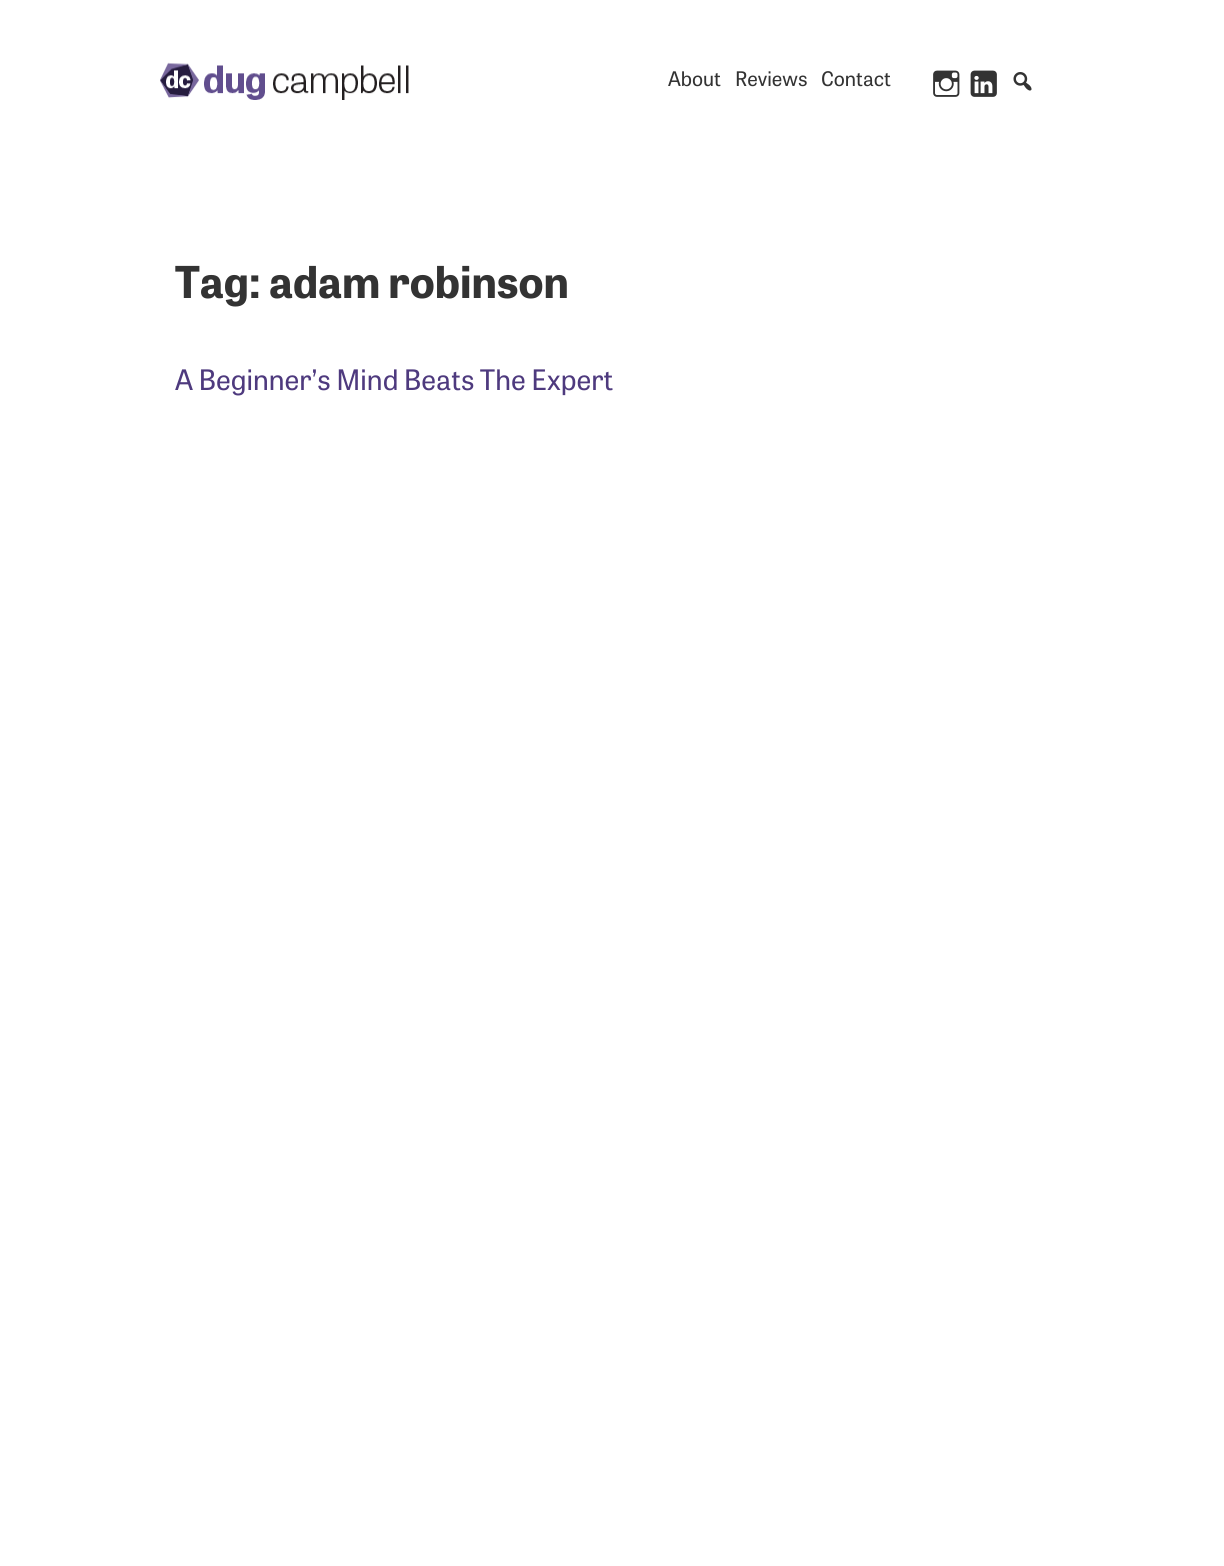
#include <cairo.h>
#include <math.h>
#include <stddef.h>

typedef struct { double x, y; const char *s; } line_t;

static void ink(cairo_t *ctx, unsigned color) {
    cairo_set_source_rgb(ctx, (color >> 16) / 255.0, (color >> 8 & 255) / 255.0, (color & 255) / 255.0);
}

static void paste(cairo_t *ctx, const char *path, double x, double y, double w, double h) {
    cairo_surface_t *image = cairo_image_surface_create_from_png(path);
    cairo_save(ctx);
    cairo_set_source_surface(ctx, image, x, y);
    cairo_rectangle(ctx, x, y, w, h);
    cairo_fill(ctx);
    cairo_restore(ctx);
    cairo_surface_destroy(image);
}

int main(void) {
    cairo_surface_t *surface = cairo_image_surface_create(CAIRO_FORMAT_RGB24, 1224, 1566);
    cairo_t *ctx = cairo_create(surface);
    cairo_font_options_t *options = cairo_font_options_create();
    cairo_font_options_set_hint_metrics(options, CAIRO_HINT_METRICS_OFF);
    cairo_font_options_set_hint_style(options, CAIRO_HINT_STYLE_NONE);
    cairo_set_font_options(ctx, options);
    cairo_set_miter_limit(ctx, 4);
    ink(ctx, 0xFFFFFF);
    cairo_paint(ctx);
    paste(ctx, "media/1.png", 160, 62, 249, 38);
    cairo_select_font_face(ctx, "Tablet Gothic", CAIRO_FONT_SLANT_NORMAL, CAIRO_FONT_WEIGHT_NORMAL);
    cairo_set_font_size(ctx, 20);
    ink(ctx, 0x333333);
    {
        static const line_t items[] = {
            {668, 86, "About"},
            {735, 86, "Reviews"},
            {821, 86, "Contact"},
        };
        for (size_t i = 0; i < sizeof items / sizeof *items; i++) {
            cairo_move_to(ctx, items[i].x, items[i].y);
            cairo_show_text(ctx, items[i].s);
        }
    }
    paste(ctx, "media/2.png", 933, 70, 27, 27);
    paste(ctx, "media/3.png", 970, 70, 27, 27);
    paste(ctx, "media/4.png", 1013, 72, 19, 19);
    cairo_select_font_face(ctx, "Tablet Gothic", CAIRO_FONT_SLANT_NORMAL, CAIRO_FONT_WEIGHT_BOLD);
    cairo_set_font_size(ctx, 43.75);
    cairo_move_to(ctx, 175, 298);
    cairo_show_text(ctx, "Tag: adam robinson");
    cairo_select_font_face(ctx, "Tablet Gothic", CAIRO_FONT_SLANT_NORMAL, CAIRO_FONT_WEIGHT_NORMAL);
    cairo_set_font_size(ctx, 28.1);
    ink(ctx, 0x4E3A7E);
    cairo_move_to(ctx, 175, 390);
    cairo_show_text(ctx, "A Beginner’s Mind Beats The Expert");
    cairo_surface_write_to_png(surface, "image.png");
    cairo_font_options_destroy(options);
    cairo_destroy(ctx);
    cairo_surface_destroy(surface);
    return 0;
}
